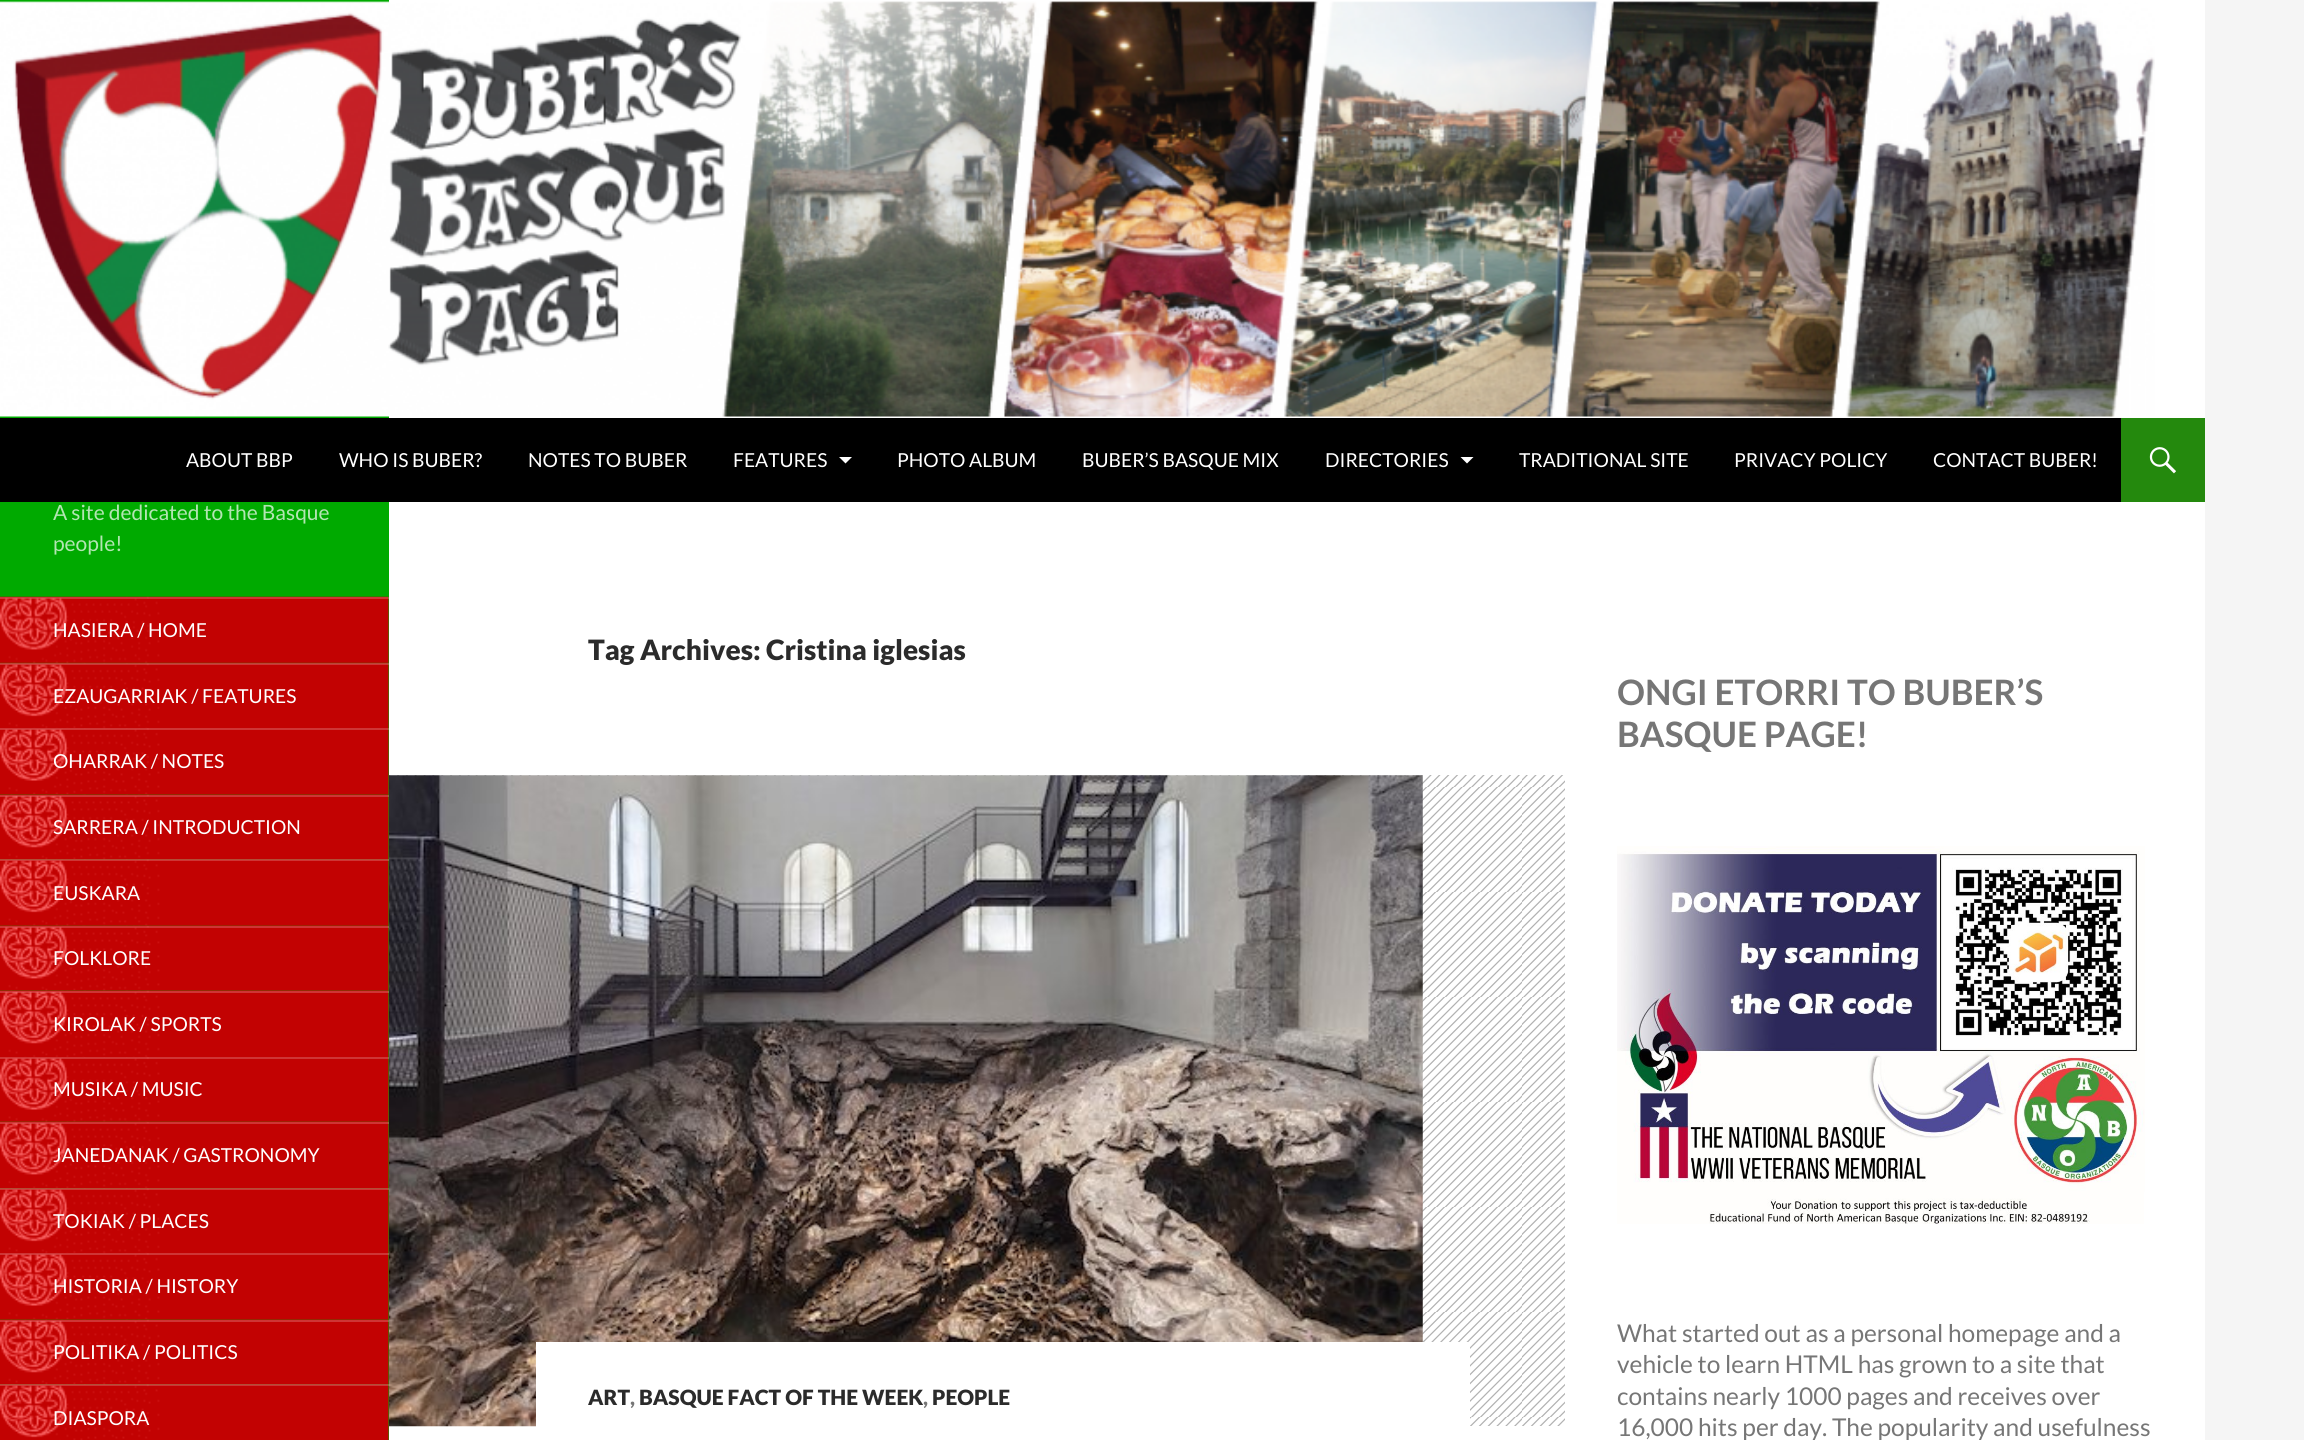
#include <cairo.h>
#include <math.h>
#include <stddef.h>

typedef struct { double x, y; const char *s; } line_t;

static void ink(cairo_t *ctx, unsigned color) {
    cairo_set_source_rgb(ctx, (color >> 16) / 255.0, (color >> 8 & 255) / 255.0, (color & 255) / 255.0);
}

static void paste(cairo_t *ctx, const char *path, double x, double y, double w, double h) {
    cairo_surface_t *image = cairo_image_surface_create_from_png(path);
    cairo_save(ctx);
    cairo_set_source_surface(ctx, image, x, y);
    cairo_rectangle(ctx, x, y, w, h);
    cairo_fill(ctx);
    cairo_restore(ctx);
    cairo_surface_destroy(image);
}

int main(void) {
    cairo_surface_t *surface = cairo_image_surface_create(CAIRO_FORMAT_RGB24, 2304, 1440);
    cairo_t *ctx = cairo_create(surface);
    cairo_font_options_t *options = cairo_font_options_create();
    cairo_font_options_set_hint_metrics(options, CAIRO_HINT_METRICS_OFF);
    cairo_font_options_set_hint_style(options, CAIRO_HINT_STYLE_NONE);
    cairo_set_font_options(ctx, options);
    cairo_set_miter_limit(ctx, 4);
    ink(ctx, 0xF5F5F5);
    cairo_paint(ctx);
    ink(ctx, 0xFFFFFF);
    cairo_rectangle(ctx, 389, 0, 1816, 1440);
    cairo_fill(ctx);
    ink(ctx, 0x00AA00);
    cairo_rectangle(ctx, 0, 0, 389, 1440);
    cairo_fill(ctx);
    paste(ctx, "media/1.png", 0, 1, 2155, 416);
    ink(ctx, 0x000000);
    cairo_rectangle(ctx, 0, 418, 2121, 84);
    cairo_fill(ctx);
    cairo_select_font_face(ctx, "Lato", CAIRO_FONT_SLANT_NORMAL, CAIRO_FONT_WEIGHT_NORMAL);
    cairo_set_font_size(ctx, 19.25);
    ink(ctx, 0xFFFFFF);
    {
        static const line_t items[] = {
            {186, 467, "ABOUT BBP"},
            {339, 467, "WHO IS BUBER?"},
            {528, 467, "NOTES TO BUBER"},
            {733, 467, "FEATURES"},
        };
        for (size_t i = 0; i < sizeof items / sizeof *items; i++) {
            cairo_move_to(ctx, items[i].x, items[i].y);
            cairo_show_text(ctx, items[i].s);
        }
    }
    cairo_new_path(ctx);
    cairo_move_to(ctx, 839, 457);
    cairo_line_to(ctx, 852, 457);
    cairo_line_to(ctx, 845.5, 463.5);
    cairo_close_path(ctx);
    cairo_fill(ctx);
    {
        static const line_t items[] = {
            {897, 467, "PHOTO ALBUM"},
            {1082, 467, "BUBER’S BASQUE MIX"},
            {1325, 467, "DIRECTORIES"},
        };
        for (size_t i = 0; i < sizeof items / sizeof *items; i++) {
            cairo_move_to(ctx, items[i].x, items[i].y);
            cairo_show_text(ctx, items[i].s);
        }
    }
    cairo_new_path(ctx);
    cairo_move_to(ctx, 1460.5, 457);
    cairo_line_to(ctx, 1473.5, 457);
    cairo_line_to(ctx, 1467, 463.5);
    cairo_close_path(ctx);
    cairo_fill(ctx);
    {
        static const line_t items[] = {
            {1519, 467, "TRADITIONAL SITE"},
            {1734, 467, "PRIVACY POLICY"},
            {1933, 467, "CONTACT BUBER!"},
        };
        for (size_t i = 0; i < sizeof items / sizeof *items; i++) {
            cairo_move_to(ctx, items[i].x, items[i].y);
            cairo_show_text(ctx, items[i].s);
        }
    }
    ink(ctx, 0x24890D);
    cairo_rectangle(ctx, 2121, 418, 84, 84);
    cairo_fill(ctx);
    paste(ctx, "media/2.png", 2149, 447, 27, 27);
    cairo_set_font_size(ctx, 21);
    ink(ctx, 0xB3E6B3);
    cairo_move_to(ctx, 53, 520);
    cairo_show_text(ctx, "A site dedicated to the Basque");
    cairo_move_to(ctx, 53, 551);
    cairo_show_text(ctx, "people!");
    paste(ctx, "media/3.png", 0, 596, 389, 68);
    cairo_set_source_rgba(ctx, 1, 1, 1, 0.2);
    cairo_rectangle(ctx, 0, 597, 389, 2);
    cairo_fill(ctx);
    cairo_set_font_size(ctx, 19.25);
    ink(ctx, 0xFFFFFF);
    cairo_move_to(ctx, 53, 637);
    cairo_show_text(ctx, "HASIERA / HOME");
    paste(ctx, "media/4.png", 0, 663, 389, 65);
    cairo_set_source_rgba(ctx, 1, 1, 1, 0.2);
    cairo_rectangle(ctx, 0, 663, 389, 2);
    cairo_fill(ctx);
    ink(ctx, 0xFFFFFF);
    cairo_move_to(ctx, 53, 703);
    cairo_show_text(ctx, "EZAUGARRIAK / FEATURES");
    paste(ctx, "media/5.png", 0, 728, 389, 67);
    cairo_set_source_rgba(ctx, 1, 1, 1, 0.2);
    cairo_rectangle(ctx, 0, 728, 389, 2);
    cairo_fill(ctx);
    ink(ctx, 0xFFFFFF);
    cairo_move_to(ctx, 53, 768);
    cairo_show_text(ctx, "OHARRAK / NOTES");
    paste(ctx, "media/6.png", 0, 794, 389, 66);
    cairo_set_source_rgba(ctx, 1, 1, 1, 0.2);
    cairo_rectangle(ctx, 0, 795, 389, 2);
    cairo_fill(ctx);
    ink(ctx, 0xFFFFFF);
    cairo_move_to(ctx, 53, 834);
    cairo_show_text(ctx, "SARRERA / INTRODUCTION");
    paste(ctx, "media/7.png", 0, 859, 389, 67);
    cairo_set_source_rgba(ctx, 1, 1, 1, 0.2);
    cairo_rectangle(ctx, 0, 859, 389, 2);
    cairo_fill(ctx);
    ink(ctx, 0xFFFFFF);
    cairo_move_to(ctx, 53, 900);
    cairo_show_text(ctx, "EUSKARA");
    paste(ctx, "media/8.png", 0, 925, 389, 66);
    cairo_set_source_rgba(ctx, 1, 1, 1, 0.2);
    cairo_rectangle(ctx, 0, 926, 389, 2);
    cairo_fill(ctx);
    ink(ctx, 0xFFFFFF);
    cairo_move_to(ctx, 53, 965);
    cairo_show_text(ctx, "FOLKLORE");
    paste(ctx, "media/9.png", 0, 990, 389, 67);
    cairo_set_source_rgba(ctx, 1, 1, 1, 0.2);
    cairo_rectangle(ctx, 0, 991, 389, 2);
    cairo_fill(ctx);
    ink(ctx, 0xFFFFFF);
    cairo_move_to(ctx, 53, 1031);
    cairo_show_text(ctx, "KIROLAK / SPORTS");
    paste(ctx, "media/10.png", 0, 1057, 389, 65);
    cairo_set_source_rgba(ctx, 1, 1, 1, 0.2);
    cairo_rectangle(ctx, 0, 1057, 389, 2);
    cairo_fill(ctx);
    ink(ctx, 0xFFFFFF);
    cairo_move_to(ctx, 53, 1096);
    cairo_show_text(ctx, "MUSIKA / MUSIC");
    paste(ctx, "media/11.png", 0, 1121, 389, 68);
    cairo_set_source_rgba(ctx, 1, 1, 1, 0.2);
    cairo_rectangle(ctx, 0, 1122, 389, 2);
    cairo_fill(ctx);
    ink(ctx, 0xFFFFFF);
    cairo_move_to(ctx, 53, 1162);
    cairo_show_text(ctx, "JANEDANAK / GASTRONOMY");
    paste(ctx, "media/12.png", 0, 1188, 389, 65);
    cairo_set_source_rgba(ctx, 1, 1, 1, 0.2);
    cairo_rectangle(ctx, 0, 1188, 389, 2);
    cairo_fill(ctx);
    ink(ctx, 0xFFFFFF);
    cairo_move_to(ctx, 53, 1228);
    cairo_show_text(ctx, "TOKIAK / PLACES");
    paste(ctx, "media/13.png", 0, 1253, 389, 67);
    cairo_set_source_rgba(ctx, 1, 1, 1, 0.2);
    cairo_rectangle(ctx, 0, 1253, 389, 2);
    cairo_fill(ctx);
    ink(ctx, 0xFFFFFF);
    cairo_move_to(ctx, 53, 1293);
    cairo_show_text(ctx, "HISTORIA / HISTORY");
    paste(ctx, "media/14.png", 0, 1319, 389, 66);
    cairo_set_source_rgba(ctx, 1, 1, 1, 0.2);
    cairo_rectangle(ctx, 0, 1320, 389, 2);
    cairo_fill(ctx);
    ink(ctx, 0xFFFFFF);
    cairo_move_to(ctx, 53, 1359);
    cairo_show_text(ctx, "POLITIKA / POLITICS");
    paste(ctx, "media/15.png", 0, 1384, 389, 56);
    cairo_set_source_rgba(ctx, 1, 1, 1, 0.2);
    cairo_rectangle(ctx, 0, 1384, 389, 2);
    cairo_fill(ctx);
    ink(ctx, 0xFFFFFF);
    cairo_move_to(ctx, 53, 1425);
    cairo_show_text(ctx, "DIASPORA");
    cairo_select_font_face(ctx, "Lato Black", CAIRO_FONT_SLANT_NORMAL, CAIRO_FONT_WEIGHT_NORMAL);
    cairo_set_font_size(ctx, 28);
    ink(ctx, 0x2B2B2B);
    cairo_move_to(ctx, 588, 660);
    cairo_show_text(ctx, "Tag Archives: Cristina iglesias");
    ink(ctx, 0xB2B2B2);
    cairo_rectangle(ctx, 389, 775, 1176, 651);
    cairo_fill(ctx);
    paste(ctx, "media/16.png", 389, 775, 1176, 651);
    paste(ctx, "media/17.png", 389, 775, 1034, 652);
    ink(ctx, 0xFFFFFF);
    cairo_rectangle(ctx, 536, 1342, 934, 85);
    cairo_fill(ctx);
    cairo_set_font_size(ctx, 21);
    ink(ctx, 0x2B2B2B);
    cairo_move_to(ctx, 588, 1405);
    cairo_show_text(ctx, "ART");
    ink(ctx, 0x767676);
    cairo_move_to(ctx, 630, 1405);
    cairo_show_text(ctx, ",");
    ink(ctx, 0x2B2B2B);
    cairo_move_to(ctx, 639, 1405);
    cairo_show_text(ctx, "BASQUE FACT OF THE WEEK");
    ink(ctx, 0x767676);
    cairo_move_to(ctx, 923, 1405);
    cairo_show_text(ctx, ",");
    ink(ctx, 0x2B2B2B);
    cairo_move_to(ctx, 932, 1405);
    cairo_show_text(ctx, "PEOPLE");
    cairo_select_font_face(ctx, "Lato", CAIRO_FONT_SLANT_NORMAL, CAIRO_FONT_WEIGHT_BOLD);
    cairo_set_font_size(ctx, 35);
    ink(ctx, 0x767676);
    cairo_move_to(ctx, 1617, 705);
    cairo_show_text(ctx, "ONGI ETORRI TO BUBER’S");
    cairo_move_to(ctx, 1617, 747);
    cairo_show_text(ctx, "BASQUE PAGE!");
    paste(ctx, "media/18.png", 1617, 846, 528, 378);
    cairo_select_font_face(ctx, "Lato", CAIRO_FONT_SLANT_NORMAL, CAIRO_FONT_WEIGHT_NORMAL);
    cairo_set_font_size(ctx, 24.5);
    {
        static const line_t items[] = {
            {1617, 1342, "What started out as a personal homepage and a"},
            {1617, 1373, "vehicle to learn HTML has grown to a site that"},
            {1617, 1405, "contains nearly 1000 pages and receives over"},
            {1617, 1436, "16,000 hits per day. The popularity and usefulness"},
        };
        for (size_t i = 0; i < sizeof items / sizeof *items; i++) {
            cairo_move_to(ctx, items[i].x, items[i].y);
            cairo_show_text(ctx, items[i].s);
        }
    }
    cairo_surface_write_to_png(surface, "image.png");
    cairo_font_options_destroy(options);
    cairo_destroy(ctx);
    cairo_surface_destroy(surface);
    return 0;
}
